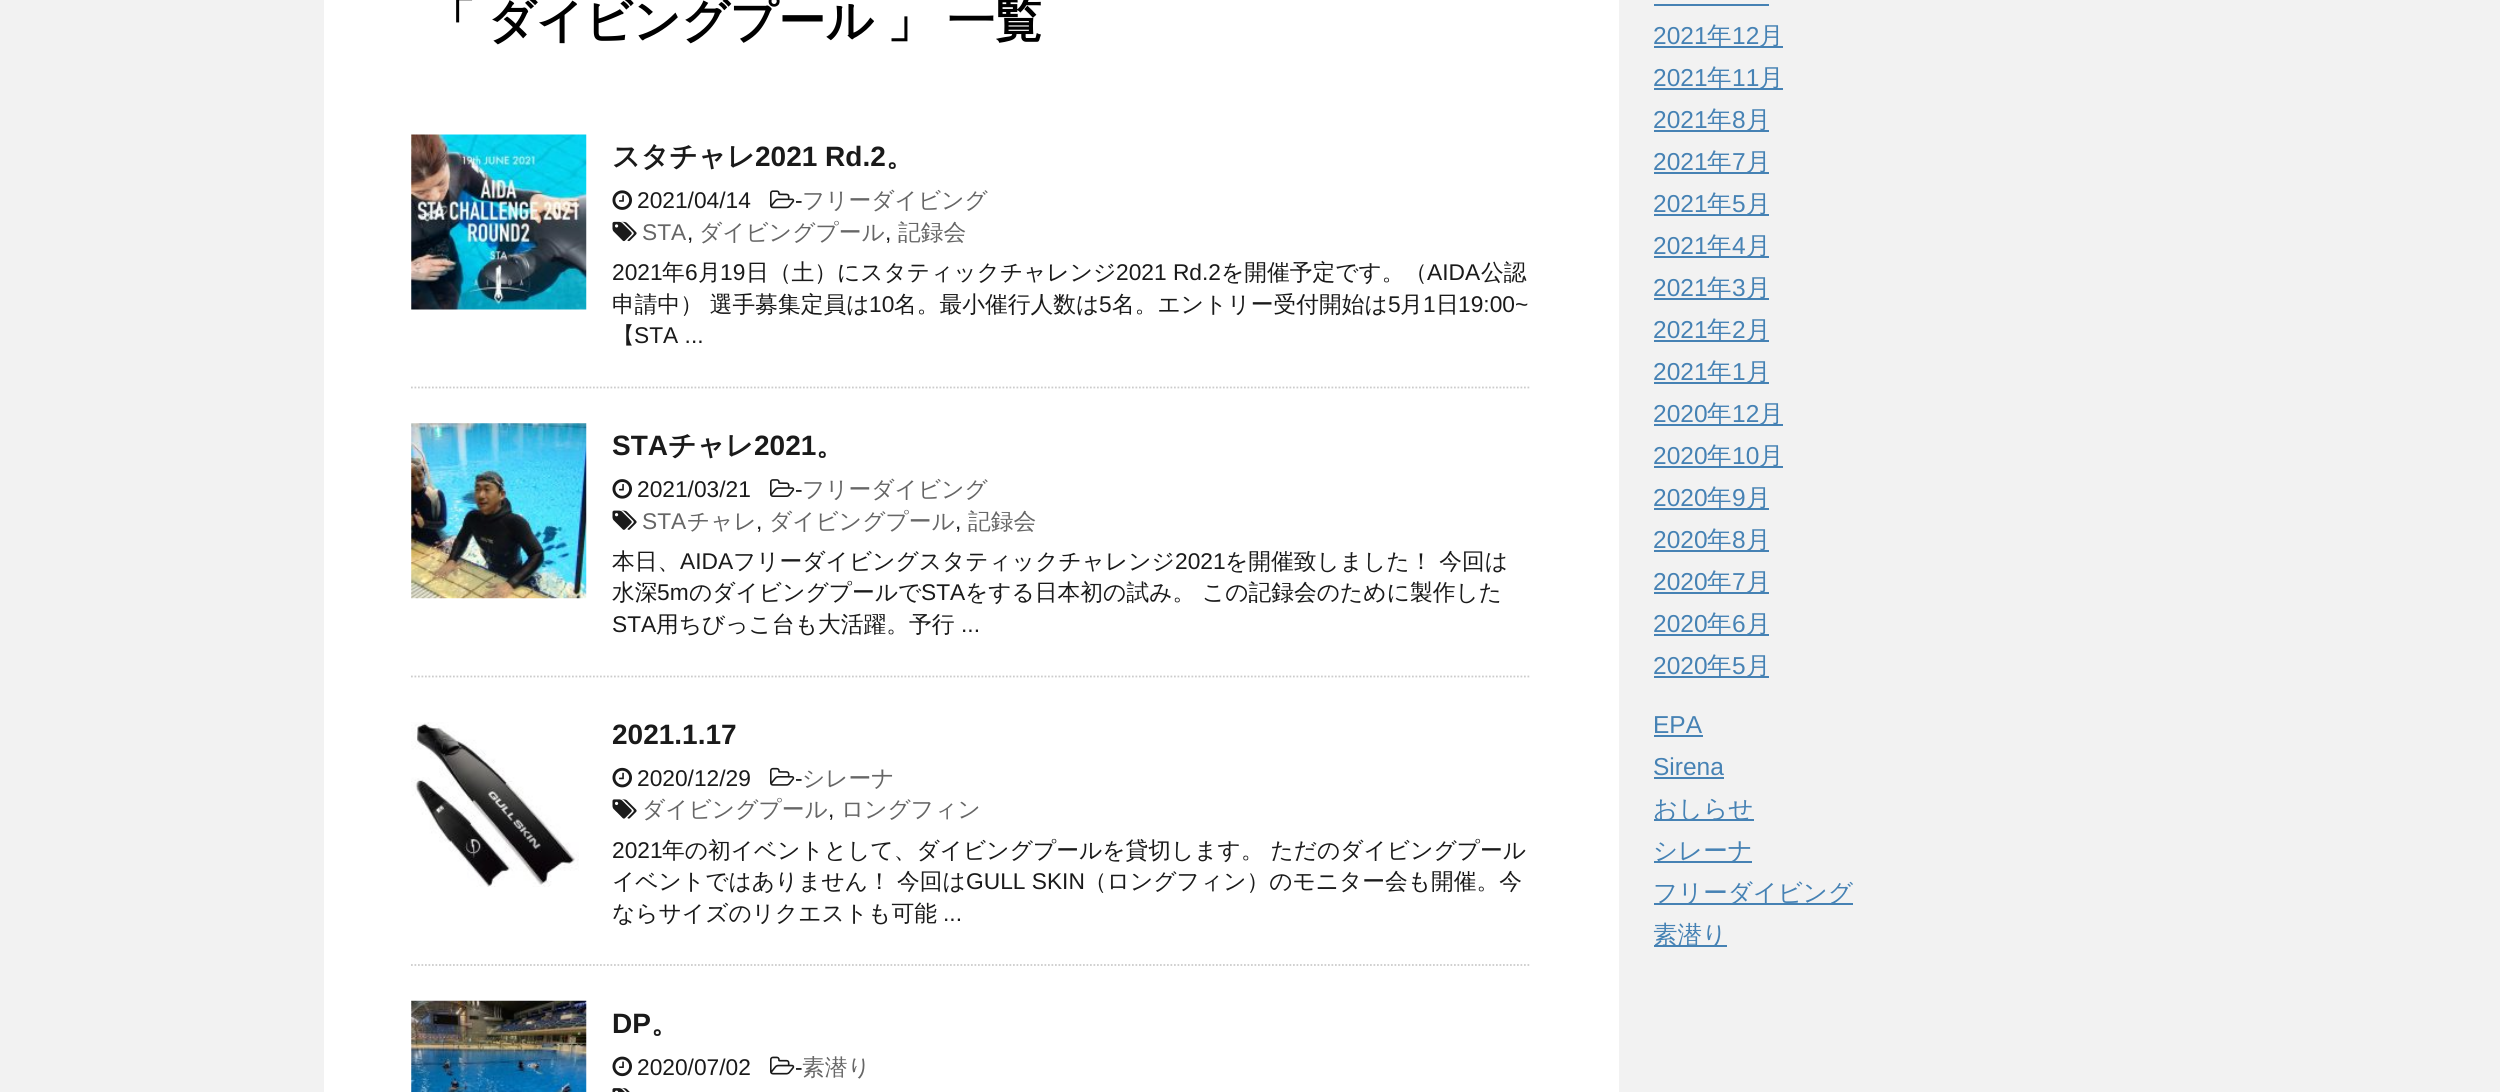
#include <cairo.h>
#include <math.h>
#include <stddef.h>

typedef struct { double x, y; const char *s; } line_t;

static void ink(cairo_t *ctx, unsigned color) {
    cairo_set_source_rgb(ctx, (color >> 16) / 255.0, (color >> 8 & 255) / 255.0, (color & 255) / 255.0);
}

static void write_spaced(cairo_t *ctx, double x, double y, const char *s, double letter, double word) {
    cairo_move_to(ctx, x, y);
    while (*s) {
        char ch[5] = {0};
        int n = 0;
        do ch[n++] = *s++; while ((*s & 0xC0) == 0x80);
        cairo_show_text(ctx, ch);
        cairo_rel_move_to(ctx, letter + word * (*ch == ' '), 0);
    }
}

static void paste(cairo_t *ctx, const char *path, double x, double y, double w, double h) {
    cairo_surface_t *image = cairo_image_surface_create_from_png(path);
    cairo_save(ctx);
    cairo_set_source_surface(ctx, image, x, y);
    cairo_rectangle(ctx, x, y, w, h);
    cairo_fill(ctx);
    cairo_restore(ctx);
    cairo_surface_destroy(image);
}

int main(void) {
    cairo_surface_t *surface = cairo_image_surface_create(CAIRO_FORMAT_RGB24, 2500, 1092);
    cairo_t *ctx = cairo_create(surface);
    cairo_font_options_t *options = cairo_font_options_create();
    cairo_font_options_set_hint_metrics(options, CAIRO_HINT_METRICS_OFF);
    cairo_font_options_set_hint_style(options, CAIRO_HINT_STYLE_NONE);
    cairo_set_font_options(ctx, options);
    cairo_set_miter_limit(ctx, 4);
    ink(ctx, 0xF2F2F2);
    cairo_paint(ctx);
    ink(ctx, 0xFFFFFF);
    cairo_rectangle(ctx, 324, 0, 1295, 1092);
    cairo_fill(ctx);
    cairo_select_font_face(ctx, "WenQuanYi Zen Hei", CAIRO_FONT_SLANT_NORMAL, CAIRO_FONT_WEIGHT_BOLD);
    cairo_set_font_size(ctx, 47.25);
    ink(ctx, 0x000000);
    cairo_move_to(ctx, 428, 37);
    cairo_show_text(ctx, "「");
    cairo_move_to(ctx, 488, 37);
    cairo_show_text(ctx, "ダイビングプール");
    write_spaced(ctx, 887, 37, "」 一覧", 0, -1);
    cairo_new_path(ctx);
    cairo_move_to(ctx, 411, 387.5);
    cairo_line_to(ctx, 1531, 387.5);
    ink(ctx, 0xCCCCCC);
    cairo_set_line_width(ctx, 1.8);
    cairo_set_dash(ctx, (double[]){1.75, 1.75}, 2, 0);
    cairo_stroke(ctx);
    paste(ctx, "media/1.png", 411, 134, 176, 176);
    cairo_set_font_size(ctx, 28);
    ink(ctx, 0x1A1A1A);
    cairo_move_to(ctx, 612, 166);
    cairo_show_text(ctx, "スタチャレ");
    cairo_select_font_face(ctx, "Liberation Sans", CAIRO_FONT_SLANT_NORMAL, CAIRO_FONT_WEIGHT_BOLD);
    cairo_move_to(ctx, 755, 166);
    cairo_show_text(ctx, "2021 Rd.2");
    cairo_select_font_face(ctx, "WenQuanYi Zen Hei", CAIRO_FONT_SLANT_NORMAL, CAIRO_FONT_WEIGHT_BOLD);
    cairo_move_to(ctx, 886, 166);
    cairo_show_text(ctx, "。");
    paste(ctx, "media/2.png", 612, 190, 20, 20);
    paste(ctx, "media/3.png", 770, 190, 25, 19);
    cairo_select_font_face(ctx, "Liberation Sans", CAIRO_FONT_SLANT_NORMAL, CAIRO_FONT_WEIGHT_NORMAL);
    cairo_set_font_size(ctx, 22.75);
    cairo_move_to(ctx, 795, 208);
    cairo_show_text(ctx, "-");
    cairo_select_font_face(ctx, "WenQuanYi Zen Hei Medium", CAIRO_FONT_SLANT_NORMAL, CAIRO_FONT_WEIGHT_NORMAL);
    ink(ctx, 0x666666);
    cairo_move_to(ctx, 802, 208);
    cairo_show_text(ctx, "フリーダイビング");
    paste(ctx, "media/4.png", 612, 221, 25, 21);
    cairo_select_font_face(ctx, "Liberation Sans", CAIRO_FONT_SLANT_NORMAL, CAIRO_FONT_WEIGHT_NORMAL);
    cairo_move_to(ctx, 642, 240);
    cairo_show_text(ctx, "STA");
    ink(ctx, 0x1A1A1A);
    cairo_move_to(ctx, 687, 240);
    cairo_show_text(ctx, ",");
    cairo_select_font_face(ctx, "WenQuanYi Zen Hei Medium", CAIRO_FONT_SLANT_NORMAL, CAIRO_FONT_WEIGHT_NORMAL);
    ink(ctx, 0x666666);
    cairo_move_to(ctx, 699, 240);
    cairo_show_text(ctx, "ダイビングプール");
    cairo_select_font_face(ctx, "Liberation Sans", CAIRO_FONT_SLANT_NORMAL, CAIRO_FONT_WEIGHT_NORMAL);
    ink(ctx, 0x1A1A1A);
    cairo_move_to(ctx, 885, 240);
    cairo_show_text(ctx, ",");
    cairo_select_font_face(ctx, "WenQuanYi Zen Hei Medium", CAIRO_FONT_SLANT_NORMAL, CAIRO_FONT_WEIGHT_NORMAL);
    ink(ctx, 0x666666);
    cairo_move_to(ctx, 898, 240);
    cairo_show_text(ctx, "記録会");
    cairo_select_font_face(ctx, "Liberation Sans", CAIRO_FONT_SLANT_NORMAL, CAIRO_FONT_WEIGHT_NORMAL);
    ink(ctx, 0x1A1A1A);
    cairo_move_to(ctx, 637, 208);
    cairo_show_text(ctx, "2021/04/14");
    cairo_move_to(ctx, 612, 280);
    cairo_show_text(ctx, "2021");
    cairo_select_font_face(ctx, "WenQuanYi Zen Hei Medium", CAIRO_FONT_SLANT_NORMAL, CAIRO_FONT_WEIGHT_NORMAL);
    cairo_move_to(ctx, 662, 280);
    cairo_show_text(ctx, "年");
    cairo_select_font_face(ctx, "Liberation Sans", CAIRO_FONT_SLANT_NORMAL, CAIRO_FONT_WEIGHT_NORMAL);
    cairo_move_to(ctx, 685, 280);
    cairo_show_text(ctx, "6");
    cairo_select_font_face(ctx, "WenQuanYi Zen Hei Medium", CAIRO_FONT_SLANT_NORMAL, CAIRO_FONT_WEIGHT_NORMAL);
    cairo_move_to(ctx, 698, 280);
    cairo_show_text(ctx, "月");
    cairo_select_font_face(ctx, "Liberation Sans", CAIRO_FONT_SLANT_NORMAL, CAIRO_FONT_WEIGHT_NORMAL);
    cairo_move_to(ctx, 720, 280);
    cairo_show_text(ctx, "19");
    cairo_select_font_face(ctx, "WenQuanYi Zen Hei Medium", CAIRO_FONT_SLANT_NORMAL, CAIRO_FONT_WEIGHT_NORMAL);
    cairo_move_to(ctx, 746, 280);
    cairo_show_text(ctx, "日（土）にスタティックチャレンジ");
    cairo_select_font_face(ctx, "Liberation Sans", CAIRO_FONT_SLANT_NORMAL, CAIRO_FONT_WEIGHT_NORMAL);
    cairo_move_to(ctx, 1116, 280);
    cairo_show_text(ctx, "2021 Rd.2");
    cairo_select_font_face(ctx, "WenQuanYi Zen Hei Medium", CAIRO_FONT_SLANT_NORMAL, CAIRO_FONT_WEIGHT_NORMAL);
    cairo_move_to(ctx, 1221, 280);
    cairo_show_text(ctx, "を開催予定です。（");
    cairo_select_font_face(ctx, "Liberation Sans", CAIRO_FONT_SLANT_NORMAL, CAIRO_FONT_WEIGHT_NORMAL);
    cairo_move_to(ctx, 1427, 280);
    cairo_show_text(ctx, "AIDA");
    cairo_select_font_face(ctx, "WenQuanYi Zen Hei Medium", CAIRO_FONT_SLANT_NORMAL, CAIRO_FONT_WEIGHT_NORMAL);
    cairo_move_to(ctx, 1481, 280);
    cairo_show_text(ctx, "公認");
    cairo_move_to(ctx, 612, 312);
    cairo_show_text(ctx, "申請中） 選手募集定員は");
    cairo_select_font_face(ctx, "Liberation Sans", CAIRO_FONT_SLANT_NORMAL, CAIRO_FONT_WEIGHT_NORMAL);
    cairo_move_to(ctx, 869, 312);
    cairo_show_text(ctx, "10");
    cairo_select_font_face(ctx, "WenQuanYi Zen Hei Medium", CAIRO_FONT_SLANT_NORMAL, CAIRO_FONT_WEIGHT_NORMAL);
    cairo_move_to(ctx, 894, 312);
    cairo_show_text(ctx, "名。最小催行人数は");
    cairo_select_font_face(ctx, "Liberation Sans", CAIRO_FONT_SLANT_NORMAL, CAIRO_FONT_WEIGHT_NORMAL);
    cairo_move_to(ctx, 1099, 312);
    cairo_show_text(ctx, "5");
    cairo_select_font_face(ctx, "WenQuanYi Zen Hei Medium", CAIRO_FONT_SLANT_NORMAL, CAIRO_FONT_WEIGHT_NORMAL);
    cairo_move_to(ctx, 1112, 312);
    cairo_show_text(ctx, "名。エントリー受付開始は");
    cairo_select_font_face(ctx, "Liberation Sans", CAIRO_FONT_SLANT_NORMAL, CAIRO_FONT_WEIGHT_NORMAL);
    cairo_move_to(ctx, 1388, 312);
    cairo_show_text(ctx, "5");
    cairo_select_font_face(ctx, "WenQuanYi Zen Hei Medium", CAIRO_FONT_SLANT_NORMAL, CAIRO_FONT_WEIGHT_NORMAL);
    cairo_move_to(ctx, 1400, 312);
    cairo_show_text(ctx, "月");
    cairo_select_font_face(ctx, "Liberation Sans", CAIRO_FONT_SLANT_NORMAL, CAIRO_FONT_WEIGHT_NORMAL);
    cairo_move_to(ctx, 1423, 312);
    cairo_show_text(ctx, "1");
    cairo_select_font_face(ctx, "WenQuanYi Zen Hei Medium", CAIRO_FONT_SLANT_NORMAL, CAIRO_FONT_WEIGHT_NORMAL);
    cairo_move_to(ctx, 1436, 312);
    cairo_show_text(ctx, "日");
    cairo_select_font_face(ctx, "Liberation Sans", CAIRO_FONT_SLANT_NORMAL, CAIRO_FONT_WEIGHT_NORMAL);
    cairo_move_to(ctx, 1458, 312);
    cairo_show_text(ctx, "19:00~");
    cairo_select_font_face(ctx, "WenQuanYi Zen Hei Medium", CAIRO_FONT_SLANT_NORMAL, CAIRO_FONT_WEIGHT_NORMAL);
    cairo_move_to(ctx, 612, 343);
    cairo_show_text(ctx, "【");
    cairo_select_font_face(ctx, "Liberation Sans", CAIRO_FONT_SLANT_NORMAL, CAIRO_FONT_WEIGHT_NORMAL);
    cairo_move_to(ctx, 634, 343);
    cairo_show_text(ctx, "STA ...");
    cairo_new_path(ctx);
    cairo_move_to(ctx, 411, 676.5);
    cairo_line_to(ctx, 1531, 676.5);
    ink(ctx, 0xCCCCCC);
    cairo_stroke(ctx);
    paste(ctx, "media/5.png", 411, 423, 176, 176);
    cairo_select_font_face(ctx, "Liberation Sans", CAIRO_FONT_SLANT_NORMAL, CAIRO_FONT_WEIGHT_BOLD);
    cairo_set_font_size(ctx, 28);
    ink(ctx, 0x1A1A1A);
    cairo_move_to(ctx, 612, 455);
    cairo_show_text(ctx, "STA");
    cairo_select_font_face(ctx, "WenQuanYi Zen Hei", CAIRO_FONT_SLANT_NORMAL, CAIRO_FONT_WEIGHT_BOLD);
    cairo_move_to(ctx, 668, 455);
    cairo_show_text(ctx, "チャレ");
    cairo_select_font_face(ctx, "Liberation Sans", CAIRO_FONT_SLANT_NORMAL, CAIRO_FONT_WEIGHT_BOLD);
    cairo_move_to(ctx, 754, 455);
    cairo_show_text(ctx, "2021");
    cairo_select_font_face(ctx, "WenQuanYi Zen Hei", CAIRO_FONT_SLANT_NORMAL, CAIRO_FONT_WEIGHT_BOLD);
    cairo_move_to(ctx, 816, 455);
    cairo_show_text(ctx, "。");
    paste(ctx, "media/6.png", 612, 479, 20, 20);
    paste(ctx, "media/7.png", 770, 479, 25, 18);
    cairo_select_font_face(ctx, "Liberation Sans", CAIRO_FONT_SLANT_NORMAL, CAIRO_FONT_WEIGHT_NORMAL);
    cairo_set_font_size(ctx, 22.75);
    cairo_move_to(ctx, 795, 497);
    cairo_show_text(ctx, "-");
    cairo_select_font_face(ctx, "WenQuanYi Zen Hei Medium", CAIRO_FONT_SLANT_NORMAL, CAIRO_FONT_WEIGHT_NORMAL);
    ink(ctx, 0x666666);
    cairo_move_to(ctx, 802, 497);
    cairo_show_text(ctx, "フリーダイビング");
    paste(ctx, "media/8.png", 612, 510, 25, 20);
    cairo_select_font_face(ctx, "Liberation Sans", CAIRO_FONT_SLANT_NORMAL, CAIRO_FONT_WEIGHT_NORMAL);
    cairo_move_to(ctx, 642, 529);
    cairo_show_text(ctx, "STA");
    cairo_select_font_face(ctx, "WenQuanYi Zen Hei Medium", CAIRO_FONT_SLANT_NORMAL, CAIRO_FONT_WEIGHT_NORMAL);
    cairo_move_to(ctx, 687, 529);
    cairo_show_text(ctx, "チャレ");
    cairo_select_font_face(ctx, "Liberation Sans", CAIRO_FONT_SLANT_NORMAL, CAIRO_FONT_WEIGHT_NORMAL);
    ink(ctx, 0x1A1A1A);
    cairo_move_to(ctx, 756, 529);
    cairo_show_text(ctx, ",");
    cairo_select_font_face(ctx, "WenQuanYi Zen Hei Medium", CAIRO_FONT_SLANT_NORMAL, CAIRO_FONT_WEIGHT_NORMAL);
    ink(ctx, 0x666666);
    cairo_move_to(ctx, 769, 529);
    cairo_show_text(ctx, "ダイビングプール");
    cairo_select_font_face(ctx, "Liberation Sans", CAIRO_FONT_SLANT_NORMAL, CAIRO_FONT_WEIGHT_NORMAL);
    ink(ctx, 0x1A1A1A);
    cairo_move_to(ctx, 955, 529);
    cairo_show_text(ctx, ",");
    cairo_select_font_face(ctx, "WenQuanYi Zen Hei Medium", CAIRO_FONT_SLANT_NORMAL, CAIRO_FONT_WEIGHT_NORMAL);
    ink(ctx, 0x666666);
    cairo_move_to(ctx, 968, 529);
    cairo_show_text(ctx, "記録会");
    cairo_select_font_face(ctx, "Liberation Sans", CAIRO_FONT_SLANT_NORMAL, CAIRO_FONT_WEIGHT_NORMAL);
    ink(ctx, 0x1A1A1A);
    cairo_move_to(ctx, 637, 497);
    cairo_show_text(ctx, "2021/03/21");
    cairo_select_font_face(ctx, "WenQuanYi Zen Hei Medium", CAIRO_FONT_SLANT_NORMAL, CAIRO_FONT_WEIGHT_NORMAL);
    cairo_move_to(ctx, 612, 569);
    cairo_show_text(ctx, "本日、");
    cairo_select_font_face(ctx, "Liberation Sans", CAIRO_FONT_SLANT_NORMAL, CAIRO_FONT_WEIGHT_NORMAL);
    cairo_move_to(ctx, 680, 569);
    cairo_show_text(ctx, "AIDA");
    cairo_select_font_face(ctx, "WenQuanYi Zen Hei Medium", CAIRO_FONT_SLANT_NORMAL, CAIRO_FONT_WEIGHT_NORMAL);
    cairo_move_to(ctx, 733, 569);
    cairo_show_text(ctx, "フリーダイビングスタティックチャレンジ");
    cairo_select_font_face(ctx, "Liberation Sans", CAIRO_FONT_SLANT_NORMAL, CAIRO_FONT_WEIGHT_NORMAL);
    cairo_move_to(ctx, 1175, 569);
    cairo_show_text(ctx, "2021");
    cairo_select_font_face(ctx, "WenQuanYi Zen Hei Medium", CAIRO_FONT_SLANT_NORMAL, CAIRO_FONT_WEIGHT_NORMAL);
    cairo_move_to(ctx, 1225, 569);
    cairo_show_text(ctx, "を開催致しました！ 今回は");
    cairo_move_to(ctx, 612, 600);
    cairo_show_text(ctx, "水深");
    cairo_select_font_face(ctx, "Liberation Sans", CAIRO_FONT_SLANT_NORMAL, CAIRO_FONT_WEIGHT_NORMAL);
    cairo_move_to(ctx, 657, 600);
    cairo_show_text(ctx, "5m");
    cairo_select_font_face(ctx, "WenQuanYi Zen Hei Medium", CAIRO_FONT_SLANT_NORMAL, CAIRO_FONT_WEIGHT_NORMAL);
    cairo_move_to(ctx, 689, 600);
    cairo_show_text(ctx, "のダイビングプールで");
    cairo_select_font_face(ctx, "Liberation Sans", CAIRO_FONT_SLANT_NORMAL, CAIRO_FONT_WEIGHT_NORMAL);
    cairo_move_to(ctx, 921, 600);
    cairo_show_text(ctx, "STA");
    cairo_select_font_face(ctx, "WenQuanYi Zen Hei Medium", CAIRO_FONT_SLANT_NORMAL, CAIRO_FONT_WEIGHT_NORMAL);
    cairo_move_to(ctx, 965, 600);
    cairo_show_text(ctx, "をする日本初の試み。 この記録会のために製作した");
    cairo_select_font_face(ctx, "Liberation Sans", CAIRO_FONT_SLANT_NORMAL, CAIRO_FONT_WEIGHT_NORMAL);
    cairo_move_to(ctx, 612, 632);
    cairo_show_text(ctx, "STA");
    cairo_select_font_face(ctx, "WenQuanYi Zen Hei Medium", CAIRO_FONT_SLANT_NORMAL, CAIRO_FONT_WEIGHT_NORMAL);
    cairo_move_to(ctx, 656, 632);
    cairo_show_text(ctx, "用ちびっこ台も大活躍。予行");
    cairo_select_font_face(ctx, "Liberation Sans", CAIRO_FONT_SLANT_NORMAL, CAIRO_FONT_WEIGHT_NORMAL);
    cairo_move_to(ctx, 961, 632);
    cairo_show_text(ctx, "...");
    cairo_new_path(ctx);
    cairo_move_to(ctx, 411, 965);
    cairo_line_to(ctx, 1531, 965);
    ink(ctx, 0xCCCCCC);
    cairo_stroke(ctx);
    paste(ctx, "media/9.png", 411, 722, 168, 165);
    cairo_select_font_face(ctx, "Liberation Sans", CAIRO_FONT_SLANT_NORMAL, CAIRO_FONT_WEIGHT_BOLD);
    cairo_set_font_size(ctx, 28);
    ink(ctx, 0x1A1A1A);
    cairo_move_to(ctx, 612, 744);
    cairo_show_text(ctx, "2021.1.17");
    paste(ctx, "media/10.png", 612, 767, 20, 21);
    cairo_select_font_face(ctx, "Liberation Sans", CAIRO_FONT_SLANT_NORMAL, CAIRO_FONT_WEIGHT_NORMAL);
    cairo_set_font_size(ctx, 22.75);
    cairo_move_to(ctx, 637, 786);
    cairo_show_text(ctx, "2020/12/29");
    paste(ctx, "media/11.png", 770, 767, 25, 19);
    cairo_move_to(ctx, 795, 786);
    cairo_show_text(ctx, "-");
    cairo_select_font_face(ctx, "WenQuanYi Zen Hei Medium", CAIRO_FONT_SLANT_NORMAL, CAIRO_FONT_WEIGHT_NORMAL);
    ink(ctx, 0x666666);
    cairo_move_to(ctx, 802, 786);
    cairo_show_text(ctx, "シレーナ");
    paste(ctx, "media/12.png", 612, 799, 25, 20);
    cairo_move_to(ctx, 642, 817);
    cairo_show_text(ctx, "ダイビングプール");
    cairo_select_font_face(ctx, "Liberation Sans", CAIRO_FONT_SLANT_NORMAL, CAIRO_FONT_WEIGHT_NORMAL);
    ink(ctx, 0x1A1A1A);
    cairo_move_to(ctx, 828, 817);
    cairo_show_text(ctx, ",");
    cairo_select_font_face(ctx, "WenQuanYi Zen Hei Medium", CAIRO_FONT_SLANT_NORMAL, CAIRO_FONT_WEIGHT_NORMAL);
    ink(ctx, 0x666666);
    cairo_move_to(ctx, 841, 817);
    cairo_show_text(ctx, "ロングフィン");
    cairo_select_font_face(ctx, "Liberation Sans", CAIRO_FONT_SLANT_NORMAL, CAIRO_FONT_WEIGHT_NORMAL);
    ink(ctx, 0x1A1A1A);
    cairo_move_to(ctx, 612, 858);
    cairo_show_text(ctx, "2021");
    cairo_select_font_face(ctx, "WenQuanYi Zen Hei Medium", CAIRO_FONT_SLANT_NORMAL, CAIRO_FONT_WEIGHT_NORMAL);
    {
        static const line_t items[] = {
            {662, 858, "年の初イベントとして、ダイビングプールを貸切します。 ただのダイビングプール"},
            {612, 889, "イベントではありません！"},
            {897, 889, "今回は"},
        };
        for (size_t i = 0; i < sizeof items / sizeof *items; i++) {
            cairo_move_to(ctx, items[i].x, items[i].y);
            cairo_show_text(ctx, items[i].s);
        }
    }
    cairo_select_font_face(ctx, "Liberation Sans", CAIRO_FONT_SLANT_NORMAL, CAIRO_FONT_WEIGHT_NORMAL);
    cairo_move_to(ctx, 966, 889);
    cairo_show_text(ctx, "GULL SKIN");
    cairo_select_font_face(ctx, "WenQuanYi Zen Hei Medium", CAIRO_FONT_SLANT_NORMAL, CAIRO_FONT_WEIGHT_NORMAL);
    cairo_move_to(ctx, 1084, 889);
    cairo_show_text(ctx, "（ロングフィン）のモニター会も開催。今");
    cairo_move_to(ctx, 612, 921);
    cairo_show_text(ctx, "ならサイズのリクエストも可能");
    cairo_select_font_face(ctx, "Liberation Sans", CAIRO_FONT_SLANT_NORMAL, CAIRO_FONT_WEIGHT_NORMAL);
    cairo_move_to(ctx, 943, 921);
    cairo_show_text(ctx, "...");
    paste(ctx, "media/13.png", 411, 1000, 176, 92);
    cairo_select_font_face(ctx, "Liberation Sans", CAIRO_FONT_SLANT_NORMAL, CAIRO_FONT_WEIGHT_BOLD);
    cairo_set_font_size(ctx, 28);
    cairo_move_to(ctx, 612, 1033);
    cairo_show_text(ctx, "DP");
    cairo_select_font_face(ctx, "WenQuanYi Zen Hei", CAIRO_FONT_SLANT_NORMAL, CAIRO_FONT_WEIGHT_BOLD);
    cairo_move_to(ctx, 651, 1033);
    cairo_show_text(ctx, "。");
    paste(ctx, "media/14.png", 612, 1056, 20, 21);
    cairo_select_font_face(ctx, "Liberation Sans", CAIRO_FONT_SLANT_NORMAL, CAIRO_FONT_WEIGHT_NORMAL);
    cairo_set_font_size(ctx, 22.75);
    cairo_move_to(ctx, 637, 1075);
    cairo_show_text(ctx, "2020/07/02");
    paste(ctx, "media/15.png", 770, 1056, 25, 19);
    cairo_move_to(ctx, 795, 1075);
    cairo_show_text(ctx, "-");
    cairo_select_font_face(ctx, "WenQuanYi Zen Hei Medium", CAIRO_FONT_SLANT_NORMAL, CAIRO_FONT_WEIGHT_NORMAL);
    ink(ctx, 0x666666);
    cairo_move_to(ctx, 802, 1075);
    cairo_show_text(ctx, "素潜り");
    paste(ctx, "media/16.png", 612, 1088, 18, 4);
    ink(ctx, 0x4682B4);
    cairo_rectangle(ctx, 1654, 4, 115, 2);
    cairo_fill(ctx);
    cairo_select_font_face(ctx, "Liberation Sans", CAIRO_FONT_SLANT_NORMAL, CAIRO_FONT_WEIGHT_NORMAL);
    cairo_set_font_size(ctx, 24.5);
    cairo_move_to(ctx, 1653, 44);
    cairo_show_text(ctx, "2021");
    cairo_rectangle(ctx, 1654, 46, 129, 2);
    cairo_fill(ctx);
    cairo_select_font_face(ctx, "WenQuanYi Zen Hei Medium", CAIRO_FONT_SLANT_NORMAL, CAIRO_FONT_WEIGHT_NORMAL);
    cairo_move_to(ctx, 1707, 44);
    cairo_show_text(ctx, "年");
    cairo_select_font_face(ctx, "Liberation Sans", CAIRO_FONT_SLANT_NORMAL, CAIRO_FONT_WEIGHT_NORMAL);
    cairo_move_to(ctx, 1732, 44);
    cairo_show_text(ctx, "12");
    cairo_select_font_face(ctx, "WenQuanYi Zen Hei Medium", CAIRO_FONT_SLANT_NORMAL, CAIRO_FONT_WEIGHT_NORMAL);
    cairo_move_to(ctx, 1759, 44);
    cairo_show_text(ctx, "月");
    cairo_select_font_face(ctx, "Liberation Sans", CAIRO_FONT_SLANT_NORMAL, CAIRO_FONT_WEIGHT_NORMAL);
    cairo_move_to(ctx, 1653, 86);
    cairo_show_text(ctx, "2021");
    cairo_rectangle(ctx, 1654, 88, 129, 2);
    cairo_fill(ctx);
    cairo_select_font_face(ctx, "WenQuanYi Zen Hei Medium", CAIRO_FONT_SLANT_NORMAL, CAIRO_FONT_WEIGHT_NORMAL);
    cairo_move_to(ctx, 1707, 86);
    cairo_show_text(ctx, "年");
    cairo_select_font_face(ctx, "Liberation Sans", CAIRO_FONT_SLANT_NORMAL, CAIRO_FONT_WEIGHT_NORMAL);
    cairo_move_to(ctx, 1732, 86);
    cairo_show_text(ctx, "11");
    cairo_select_font_face(ctx, "WenQuanYi Zen Hei Medium", CAIRO_FONT_SLANT_NORMAL, CAIRO_FONT_WEIGHT_NORMAL);
    cairo_move_to(ctx, 1759, 86);
    cairo_show_text(ctx, "月");
    cairo_select_font_face(ctx, "Liberation Sans", CAIRO_FONT_SLANT_NORMAL, CAIRO_FONT_WEIGHT_NORMAL);
    cairo_move_to(ctx, 1653, 128);
    cairo_show_text(ctx, "2021");
    cairo_rectangle(ctx, 1654, 130, 115, 2);
    cairo_fill(ctx);
    cairo_select_font_face(ctx, "WenQuanYi Zen Hei Medium", CAIRO_FONT_SLANT_NORMAL, CAIRO_FONT_WEIGHT_NORMAL);
    cairo_move_to(ctx, 1707, 128);
    cairo_show_text(ctx, "年");
    cairo_select_font_face(ctx, "Liberation Sans", CAIRO_FONT_SLANT_NORMAL, CAIRO_FONT_WEIGHT_NORMAL);
    cairo_move_to(ctx, 1732, 128);
    cairo_show_text(ctx, "8");
    cairo_select_font_face(ctx, "WenQuanYi Zen Hei Medium", CAIRO_FONT_SLANT_NORMAL, CAIRO_FONT_WEIGHT_NORMAL);
    cairo_move_to(ctx, 1746, 128);
    cairo_show_text(ctx, "月");
    cairo_select_font_face(ctx, "Liberation Sans", CAIRO_FONT_SLANT_NORMAL, CAIRO_FONT_WEIGHT_NORMAL);
    cairo_move_to(ctx, 1653, 170);
    cairo_show_text(ctx, "2021");
    cairo_rectangle(ctx, 1654, 172, 115, 2);
    cairo_fill(ctx);
    cairo_select_font_face(ctx, "WenQuanYi Zen Hei Medium", CAIRO_FONT_SLANT_NORMAL, CAIRO_FONT_WEIGHT_NORMAL);
    cairo_move_to(ctx, 1707, 170);
    cairo_show_text(ctx, "年");
    cairo_select_font_face(ctx, "Liberation Sans", CAIRO_FONT_SLANT_NORMAL, CAIRO_FONT_WEIGHT_NORMAL);
    cairo_move_to(ctx, 1732, 170);
    cairo_show_text(ctx, "7");
    cairo_select_font_face(ctx, "WenQuanYi Zen Hei Medium", CAIRO_FONT_SLANT_NORMAL, CAIRO_FONT_WEIGHT_NORMAL);
    cairo_move_to(ctx, 1746, 170);
    cairo_show_text(ctx, "月");
    cairo_select_font_face(ctx, "Liberation Sans", CAIRO_FONT_SLANT_NORMAL, CAIRO_FONT_WEIGHT_NORMAL);
    cairo_move_to(ctx, 1653, 212);
    cairo_show_text(ctx, "2021");
    cairo_rectangle(ctx, 1654, 214, 115, 2);
    cairo_fill(ctx);
    cairo_select_font_face(ctx, "WenQuanYi Zen Hei Medium", CAIRO_FONT_SLANT_NORMAL, CAIRO_FONT_WEIGHT_NORMAL);
    cairo_move_to(ctx, 1707, 212);
    cairo_show_text(ctx, "年");
    cairo_select_font_face(ctx, "Liberation Sans", CAIRO_FONT_SLANT_NORMAL, CAIRO_FONT_WEIGHT_NORMAL);
    cairo_move_to(ctx, 1732, 212);
    cairo_show_text(ctx, "5");
    cairo_select_font_face(ctx, "WenQuanYi Zen Hei Medium", CAIRO_FONT_SLANT_NORMAL, CAIRO_FONT_WEIGHT_NORMAL);
    cairo_move_to(ctx, 1746, 212);
    cairo_show_text(ctx, "月");
    cairo_select_font_face(ctx, "Liberation Sans", CAIRO_FONT_SLANT_NORMAL, CAIRO_FONT_WEIGHT_NORMAL);
    cairo_move_to(ctx, 1653, 254);
    cairo_show_text(ctx, "2021");
    cairo_rectangle(ctx, 1654, 256, 115, 2);
    cairo_fill(ctx);
    cairo_select_font_face(ctx, "WenQuanYi Zen Hei Medium", CAIRO_FONT_SLANT_NORMAL, CAIRO_FONT_WEIGHT_NORMAL);
    cairo_move_to(ctx, 1707, 254);
    cairo_show_text(ctx, "年");
    cairo_select_font_face(ctx, "Liberation Sans", CAIRO_FONT_SLANT_NORMAL, CAIRO_FONT_WEIGHT_NORMAL);
    cairo_move_to(ctx, 1732, 254);
    cairo_show_text(ctx, "4");
    cairo_select_font_face(ctx, "WenQuanYi Zen Hei Medium", CAIRO_FONT_SLANT_NORMAL, CAIRO_FONT_WEIGHT_NORMAL);
    cairo_move_to(ctx, 1746, 254);
    cairo_show_text(ctx, "月");
    cairo_select_font_face(ctx, "Liberation Sans", CAIRO_FONT_SLANT_NORMAL, CAIRO_FONT_WEIGHT_NORMAL);
    cairo_move_to(ctx, 1653, 296);
    cairo_show_text(ctx, "2021");
    cairo_rectangle(ctx, 1654, 298, 115, 2);
    cairo_fill(ctx);
    cairo_select_font_face(ctx, "WenQuanYi Zen Hei Medium", CAIRO_FONT_SLANT_NORMAL, CAIRO_FONT_WEIGHT_NORMAL);
    cairo_move_to(ctx, 1707, 296);
    cairo_show_text(ctx, "年");
    cairo_select_font_face(ctx, "Liberation Sans", CAIRO_FONT_SLANT_NORMAL, CAIRO_FONT_WEIGHT_NORMAL);
    cairo_move_to(ctx, 1732, 296);
    cairo_show_text(ctx, "3");
    cairo_select_font_face(ctx, "WenQuanYi Zen Hei Medium", CAIRO_FONT_SLANT_NORMAL, CAIRO_FONT_WEIGHT_NORMAL);
    cairo_move_to(ctx, 1746, 296);
    cairo_show_text(ctx, "月");
    cairo_select_font_face(ctx, "Liberation Sans", CAIRO_FONT_SLANT_NORMAL, CAIRO_FONT_WEIGHT_NORMAL);
    cairo_move_to(ctx, 1653, 338);
    cairo_show_text(ctx, "2021");
    cairo_rectangle(ctx, 1654, 340, 115, 2);
    cairo_fill(ctx);
    cairo_select_font_face(ctx, "WenQuanYi Zen Hei Medium", CAIRO_FONT_SLANT_NORMAL, CAIRO_FONT_WEIGHT_NORMAL);
    cairo_move_to(ctx, 1707, 338);
    cairo_show_text(ctx, "年");
    cairo_select_font_face(ctx, "Liberation Sans", CAIRO_FONT_SLANT_NORMAL, CAIRO_FONT_WEIGHT_NORMAL);
    cairo_move_to(ctx, 1732, 338);
    cairo_show_text(ctx, "2");
    cairo_select_font_face(ctx, "WenQuanYi Zen Hei Medium", CAIRO_FONT_SLANT_NORMAL, CAIRO_FONT_WEIGHT_NORMAL);
    cairo_move_to(ctx, 1746, 338);
    cairo_show_text(ctx, "月");
    cairo_select_font_face(ctx, "Liberation Sans", CAIRO_FONT_SLANT_NORMAL, CAIRO_FONT_WEIGHT_NORMAL);
    cairo_move_to(ctx, 1653, 380);
    cairo_show_text(ctx, "2021");
    cairo_rectangle(ctx, 1654, 382, 115, 2);
    cairo_fill(ctx);
    cairo_select_font_face(ctx, "WenQuanYi Zen Hei Medium", CAIRO_FONT_SLANT_NORMAL, CAIRO_FONT_WEIGHT_NORMAL);
    cairo_move_to(ctx, 1707, 380);
    cairo_show_text(ctx, "年");
    cairo_select_font_face(ctx, "Liberation Sans", CAIRO_FONT_SLANT_NORMAL, CAIRO_FONT_WEIGHT_NORMAL);
    cairo_move_to(ctx, 1732, 380);
    cairo_show_text(ctx, "1");
    cairo_select_font_face(ctx, "WenQuanYi Zen Hei Medium", CAIRO_FONT_SLANT_NORMAL, CAIRO_FONT_WEIGHT_NORMAL);
    cairo_move_to(ctx, 1746, 380);
    cairo_show_text(ctx, "月");
    cairo_select_font_face(ctx, "Liberation Sans", CAIRO_FONT_SLANT_NORMAL, CAIRO_FONT_WEIGHT_NORMAL);
    cairo_move_to(ctx, 1653, 422);
    cairo_show_text(ctx, "2020");
    cairo_rectangle(ctx, 1654, 424, 129, 2);
    cairo_fill(ctx);
    cairo_select_font_face(ctx, "WenQuanYi Zen Hei Medium", CAIRO_FONT_SLANT_NORMAL, CAIRO_FONT_WEIGHT_NORMAL);
    cairo_move_to(ctx, 1707, 422);
    cairo_show_text(ctx, "年");
    cairo_select_font_face(ctx, "Liberation Sans", CAIRO_FONT_SLANT_NORMAL, CAIRO_FONT_WEIGHT_NORMAL);
    cairo_move_to(ctx, 1732, 422);
    cairo_show_text(ctx, "12");
    cairo_select_font_face(ctx, "WenQuanYi Zen Hei Medium", CAIRO_FONT_SLANT_NORMAL, CAIRO_FONT_WEIGHT_NORMAL);
    cairo_move_to(ctx, 1759, 422);
    cairo_show_text(ctx, "月");
    cairo_select_font_face(ctx, "Liberation Sans", CAIRO_FONT_SLANT_NORMAL, CAIRO_FONT_WEIGHT_NORMAL);
    cairo_move_to(ctx, 1653, 464);
    cairo_show_text(ctx, "2020");
    cairo_rectangle(ctx, 1654, 466, 129, 2);
    cairo_fill(ctx);
    cairo_select_font_face(ctx, "WenQuanYi Zen Hei Medium", CAIRO_FONT_SLANT_NORMAL, CAIRO_FONT_WEIGHT_NORMAL);
    cairo_move_to(ctx, 1707, 464);
    cairo_show_text(ctx, "年");
    cairo_select_font_face(ctx, "Liberation Sans", CAIRO_FONT_SLANT_NORMAL, CAIRO_FONT_WEIGHT_NORMAL);
    cairo_move_to(ctx, 1732, 464);
    cairo_show_text(ctx, "10");
    cairo_select_font_face(ctx, "WenQuanYi Zen Hei Medium", CAIRO_FONT_SLANT_NORMAL, CAIRO_FONT_WEIGHT_NORMAL);
    cairo_move_to(ctx, 1759, 464);
    cairo_show_text(ctx, "月");
    cairo_select_font_face(ctx, "Liberation Sans", CAIRO_FONT_SLANT_NORMAL, CAIRO_FONT_WEIGHT_NORMAL);
    cairo_move_to(ctx, 1653, 506);
    cairo_show_text(ctx, "2020");
    cairo_rectangle(ctx, 1654, 508, 115, 2);
    cairo_fill(ctx);
    cairo_select_font_face(ctx, "WenQuanYi Zen Hei Medium", CAIRO_FONT_SLANT_NORMAL, CAIRO_FONT_WEIGHT_NORMAL);
    cairo_move_to(ctx, 1707, 506);
    cairo_show_text(ctx, "年");
    cairo_select_font_face(ctx, "Liberation Sans", CAIRO_FONT_SLANT_NORMAL, CAIRO_FONT_WEIGHT_NORMAL);
    cairo_move_to(ctx, 1732, 506);
    cairo_show_text(ctx, "9");
    cairo_select_font_face(ctx, "WenQuanYi Zen Hei Medium", CAIRO_FONT_SLANT_NORMAL, CAIRO_FONT_WEIGHT_NORMAL);
    cairo_move_to(ctx, 1746, 506);
    cairo_show_text(ctx, "月");
    cairo_select_font_face(ctx, "Liberation Sans", CAIRO_FONT_SLANT_NORMAL, CAIRO_FONT_WEIGHT_NORMAL);
    cairo_move_to(ctx, 1653, 548);
    cairo_show_text(ctx, "2020");
    cairo_rectangle(ctx, 1654, 550, 115, 2);
    cairo_fill(ctx);
    cairo_select_font_face(ctx, "WenQuanYi Zen Hei Medium", CAIRO_FONT_SLANT_NORMAL, CAIRO_FONT_WEIGHT_NORMAL);
    cairo_move_to(ctx, 1707, 548);
    cairo_show_text(ctx, "年");
    cairo_select_font_face(ctx, "Liberation Sans", CAIRO_FONT_SLANT_NORMAL, CAIRO_FONT_WEIGHT_NORMAL);
    cairo_move_to(ctx, 1732, 548);
    cairo_show_text(ctx, "8");
    cairo_select_font_face(ctx, "WenQuanYi Zen Hei Medium", CAIRO_FONT_SLANT_NORMAL, CAIRO_FONT_WEIGHT_NORMAL);
    cairo_move_to(ctx, 1746, 548);
    cairo_show_text(ctx, "月");
    cairo_select_font_face(ctx, "Liberation Sans", CAIRO_FONT_SLANT_NORMAL, CAIRO_FONT_WEIGHT_NORMAL);
    cairo_move_to(ctx, 1653, 590);
    cairo_show_text(ctx, "2020");
    cairo_rectangle(ctx, 1654, 592, 115, 2);
    cairo_fill(ctx);
    cairo_select_font_face(ctx, "WenQuanYi Zen Hei Medium", CAIRO_FONT_SLANT_NORMAL, CAIRO_FONT_WEIGHT_NORMAL);
    cairo_move_to(ctx, 1707, 590);
    cairo_show_text(ctx, "年");
    cairo_select_font_face(ctx, "Liberation Sans", CAIRO_FONT_SLANT_NORMAL, CAIRO_FONT_WEIGHT_NORMAL);
    cairo_move_to(ctx, 1732, 590);
    cairo_show_text(ctx, "7");
    cairo_select_font_face(ctx, "WenQuanYi Zen Hei Medium", CAIRO_FONT_SLANT_NORMAL, CAIRO_FONT_WEIGHT_NORMAL);
    cairo_move_to(ctx, 1746, 590);
    cairo_show_text(ctx, "月");
    cairo_select_font_face(ctx, "Liberation Sans", CAIRO_FONT_SLANT_NORMAL, CAIRO_FONT_WEIGHT_NORMAL);
    cairo_move_to(ctx, 1653, 632);
    cairo_show_text(ctx, "2020");
    cairo_rectangle(ctx, 1654, 634, 115, 2);
    cairo_fill(ctx);
    cairo_select_font_face(ctx, "WenQuanYi Zen Hei Medium", CAIRO_FONT_SLANT_NORMAL, CAIRO_FONT_WEIGHT_NORMAL);
    cairo_move_to(ctx, 1707, 632);
    cairo_show_text(ctx, "年");
    cairo_select_font_face(ctx, "Liberation Sans", CAIRO_FONT_SLANT_NORMAL, CAIRO_FONT_WEIGHT_NORMAL);
    cairo_move_to(ctx, 1732, 632);
    cairo_show_text(ctx, "6");
    cairo_select_font_face(ctx, "WenQuanYi Zen Hei Medium", CAIRO_FONT_SLANT_NORMAL, CAIRO_FONT_WEIGHT_NORMAL);
    cairo_move_to(ctx, 1746, 632);
    cairo_show_text(ctx, "月");
    cairo_select_font_face(ctx, "Liberation Sans", CAIRO_FONT_SLANT_NORMAL, CAIRO_FONT_WEIGHT_NORMAL);
    cairo_move_to(ctx, 1653, 674);
    cairo_show_text(ctx, "2020");
    cairo_rectangle(ctx, 1654, 676, 115, 2);
    cairo_fill(ctx);
    cairo_select_font_face(ctx, "WenQuanYi Zen Hei Medium", CAIRO_FONT_SLANT_NORMAL, CAIRO_FONT_WEIGHT_NORMAL);
    cairo_move_to(ctx, 1707, 674);
    cairo_show_text(ctx, "年");
    cairo_select_font_face(ctx, "Liberation Sans", CAIRO_FONT_SLANT_NORMAL, CAIRO_FONT_WEIGHT_NORMAL);
    cairo_move_to(ctx, 1732, 674);
    cairo_show_text(ctx, "5");
    cairo_select_font_face(ctx, "WenQuanYi Zen Hei Medium", CAIRO_FONT_SLANT_NORMAL, CAIRO_FONT_WEIGHT_NORMAL);
    cairo_move_to(ctx, 1746, 674);
    cairo_show_text(ctx, "月");
    cairo_select_font_face(ctx, "Liberation Sans", CAIRO_FONT_SLANT_NORMAL, CAIRO_FONT_WEIGHT_NORMAL);
    cairo_move_to(ctx, 1653, 733);
    cairo_show_text(ctx, "EPA");
    cairo_rectangle(ctx, 1654, 735, 49, 2);
    cairo_fill(ctx);
    cairo_move_to(ctx, 1653, 775);
    cairo_show_text(ctx, "Sirena");
    cairo_rectangle(ctx, 1654, 777, 70, 2);
    cairo_fill(ctx);
    cairo_rectangle(ctx, 1654, 819, 100, 2);
    cairo_fill(ctx);
    cairo_select_font_face(ctx, "WenQuanYi Zen Hei Medium", CAIRO_FONT_SLANT_NORMAL, CAIRO_FONT_WEIGHT_NORMAL);
    cairo_move_to(ctx, 1653, 817);
    cairo_show_text(ctx, "おしらせ");
    cairo_rectangle(ctx, 1654, 861, 98, 2);
    cairo_fill(ctx);
    cairo_move_to(ctx, 1653, 859);
    cairo_show_text(ctx, "シレーナ");
    cairo_rectangle(ctx, 1654, 903, 199, 2);
    cairo_fill(ctx);
    cairo_move_to(ctx, 1653, 901);
    cairo_show_text(ctx, "フリーダイビング");
    cairo_rectangle(ctx, 1654, 945, 73, 2);
    cairo_fill(ctx);
    cairo_move_to(ctx, 1653, 943);
    cairo_show_text(ctx, "素潜り");
    cairo_surface_write_to_png(surface, "image.png");
    cairo_font_options_destroy(options);
    cairo_destroy(ctx);
    cairo_surface_destroy(surface);
    return 0;
}
